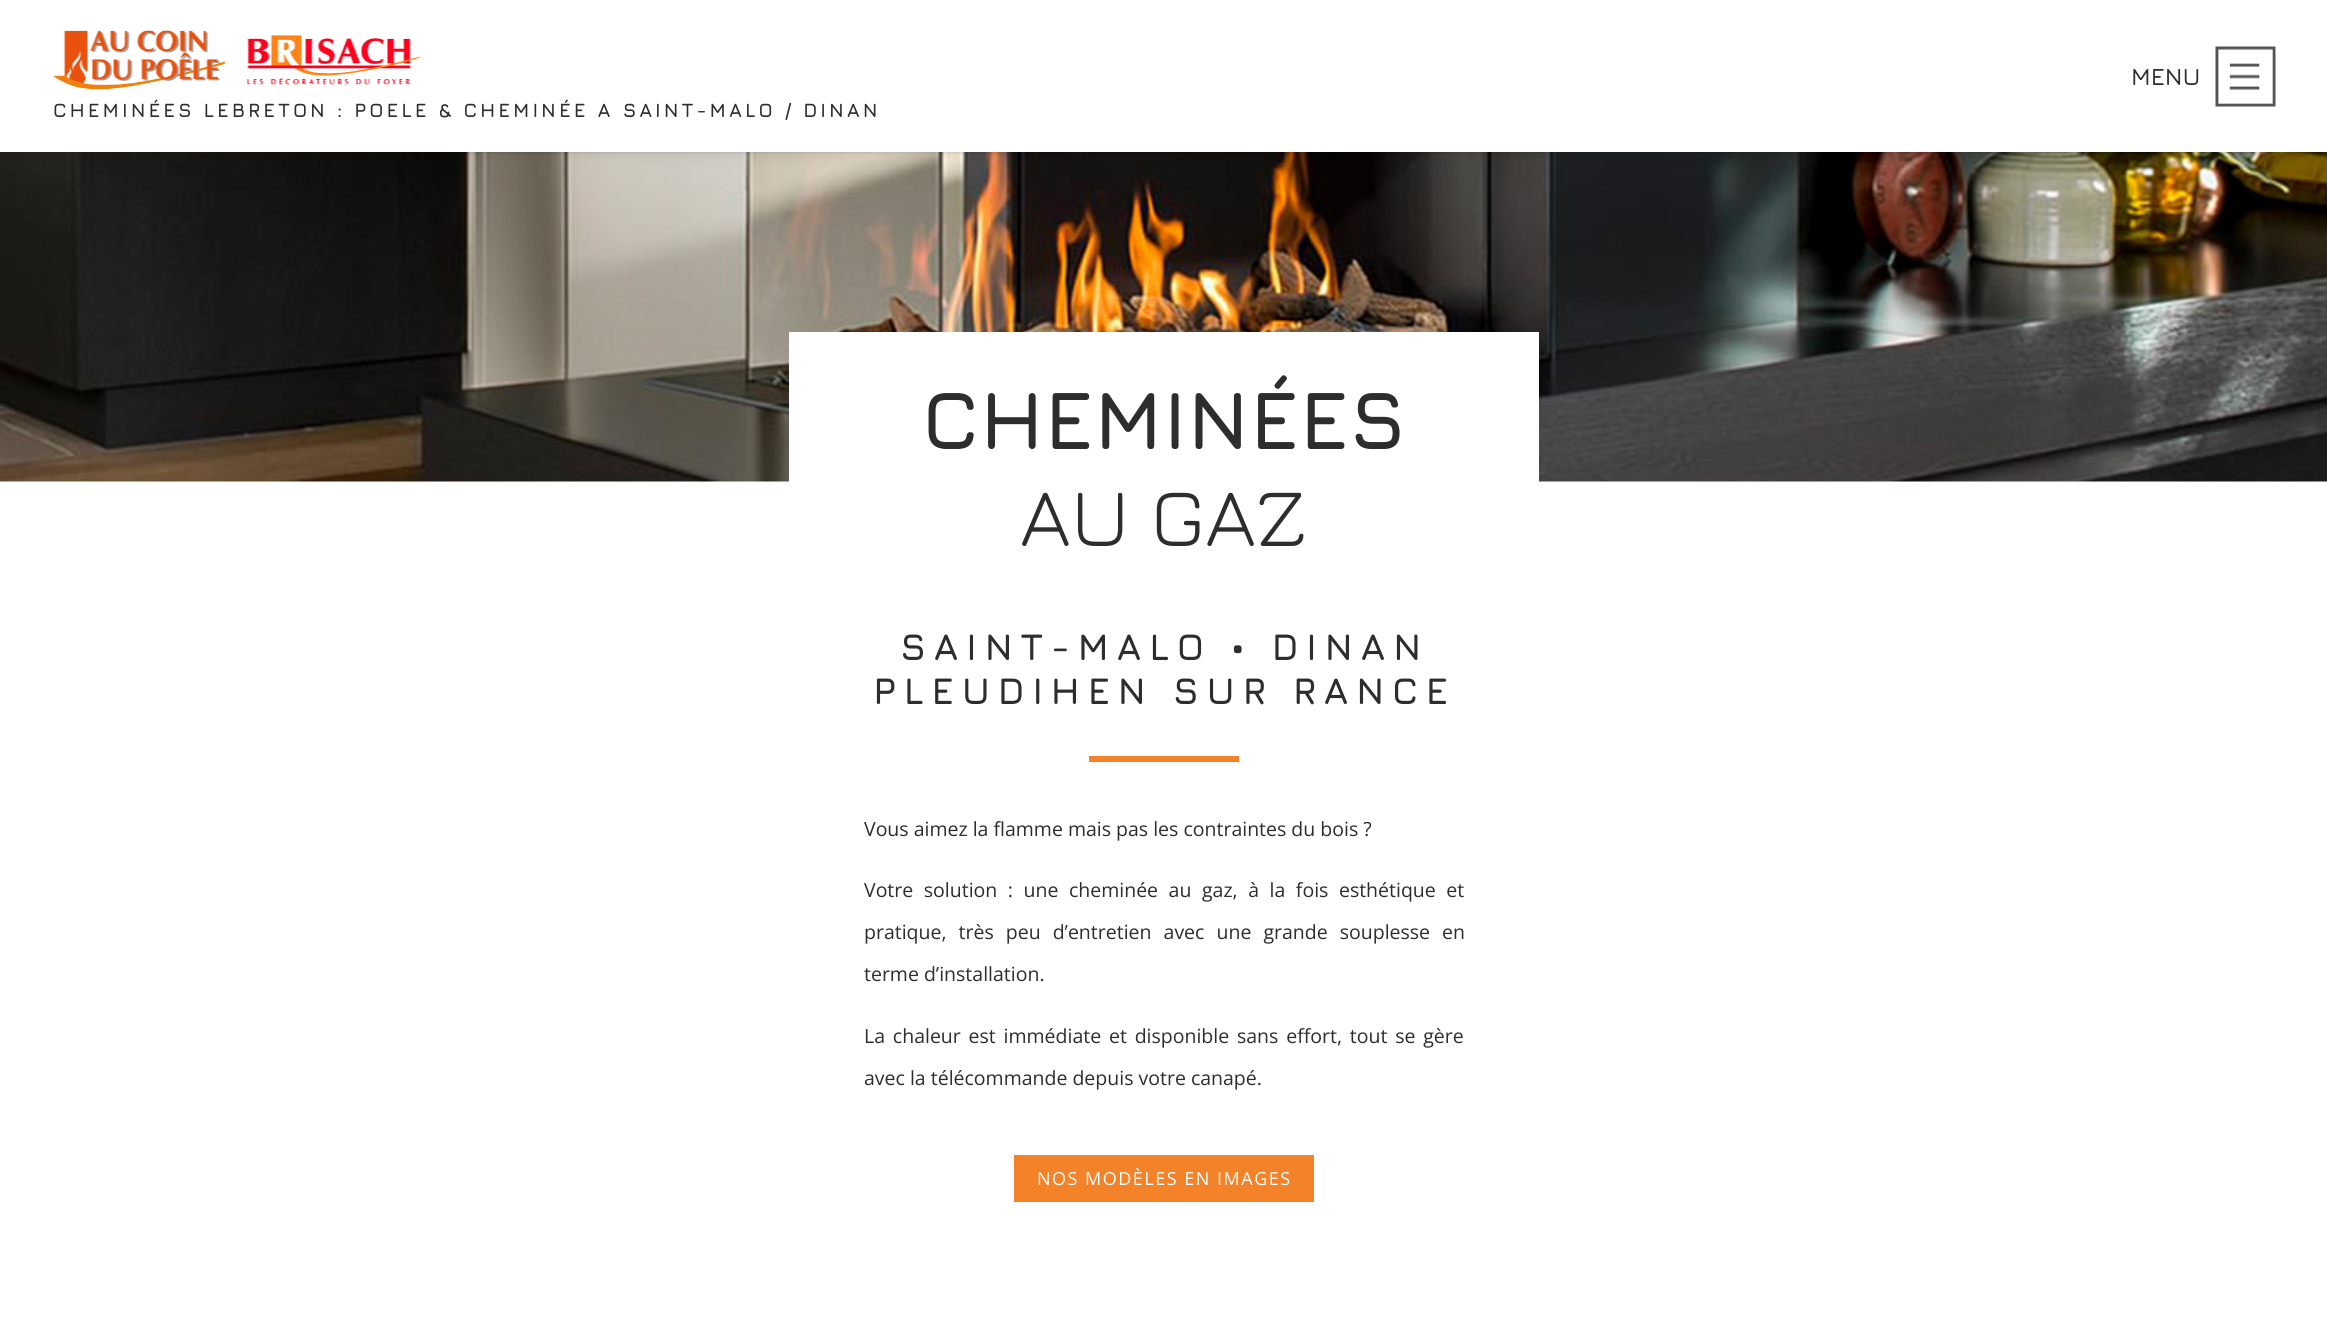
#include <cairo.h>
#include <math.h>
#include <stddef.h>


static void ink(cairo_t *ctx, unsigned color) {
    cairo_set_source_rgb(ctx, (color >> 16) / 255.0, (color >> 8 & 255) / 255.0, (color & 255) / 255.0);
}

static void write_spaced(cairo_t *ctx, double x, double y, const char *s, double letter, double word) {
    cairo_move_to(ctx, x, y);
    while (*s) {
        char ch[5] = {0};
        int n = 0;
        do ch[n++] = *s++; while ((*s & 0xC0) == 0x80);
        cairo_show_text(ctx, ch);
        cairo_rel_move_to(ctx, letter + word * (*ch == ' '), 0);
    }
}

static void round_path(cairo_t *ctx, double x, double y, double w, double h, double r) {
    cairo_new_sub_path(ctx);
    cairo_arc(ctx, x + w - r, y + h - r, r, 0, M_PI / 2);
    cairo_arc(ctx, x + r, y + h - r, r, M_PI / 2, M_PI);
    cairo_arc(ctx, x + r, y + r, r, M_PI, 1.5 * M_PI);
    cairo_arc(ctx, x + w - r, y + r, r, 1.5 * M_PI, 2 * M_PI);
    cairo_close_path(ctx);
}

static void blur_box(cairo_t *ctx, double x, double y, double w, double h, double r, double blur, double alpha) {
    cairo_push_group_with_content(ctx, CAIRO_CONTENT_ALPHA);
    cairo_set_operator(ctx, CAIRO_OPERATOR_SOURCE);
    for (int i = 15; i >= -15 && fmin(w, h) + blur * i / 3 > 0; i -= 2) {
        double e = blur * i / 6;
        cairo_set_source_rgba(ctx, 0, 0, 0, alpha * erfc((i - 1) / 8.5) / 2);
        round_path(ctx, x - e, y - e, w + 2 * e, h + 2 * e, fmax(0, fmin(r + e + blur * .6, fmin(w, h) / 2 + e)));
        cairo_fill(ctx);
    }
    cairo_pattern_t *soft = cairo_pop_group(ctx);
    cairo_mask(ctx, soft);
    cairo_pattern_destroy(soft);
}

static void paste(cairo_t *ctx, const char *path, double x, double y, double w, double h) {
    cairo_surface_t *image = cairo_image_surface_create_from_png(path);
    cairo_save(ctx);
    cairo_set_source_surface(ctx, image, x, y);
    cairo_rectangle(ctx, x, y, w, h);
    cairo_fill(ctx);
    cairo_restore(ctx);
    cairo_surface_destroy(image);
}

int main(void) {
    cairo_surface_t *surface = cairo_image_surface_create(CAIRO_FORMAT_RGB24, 2327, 1321);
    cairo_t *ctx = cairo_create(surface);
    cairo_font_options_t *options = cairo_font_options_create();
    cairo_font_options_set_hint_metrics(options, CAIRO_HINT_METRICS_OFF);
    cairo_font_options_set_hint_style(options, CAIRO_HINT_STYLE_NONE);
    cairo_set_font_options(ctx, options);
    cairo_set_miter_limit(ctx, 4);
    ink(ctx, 0xFFFFFF);
    cairo_paint(ctx);
    paste(ctx, "media/4.png", 0, 152, 2327, 330);
    cairo_set_source_rgba(ctx, 0, 0, 0, 0.05);
    cairo_rectangle(ctx, 466, 152, 1861, 2);
    cairo_fill(ctx);
    ink(ctx, 0x000000);
    blur_box(ctx, 0, 0, 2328, 152, 0, 7.5, 0.1);
    ink(ctx, 0xFFFFFF);
    cairo_rectangle(ctx, 0, 0, 2327, 152);
    cairo_fill(ctx);
    cairo_select_font_face(ctx, "Jura SemiBold", CAIRO_FONT_SLANT_NORMAL, CAIRO_FONT_WEIGHT_NORMAL);
    cairo_set_font_size(ctx, 24);
    ink(ctx, 0x2E2D2C);
    cairo_move_to(ctx, 2131, 85);
    cairo_show_text(ctx, "MENU");
    paste(ctx, "media/1.png", 2215, 46, 61, 61);
    paste(ctx, "media/2.png", 53, 30, 173, 60);
    paste(ctx, "media/3.png", 247, 35, 174, 50);
    cairo_select_font_face(ctx, "Jura", CAIRO_FONT_SLANT_NORMAL, CAIRO_FONT_WEIGHT_BOLD);
    cairo_set_font_size(ctx, 19.5);
    write_spaced(ctx, 53, 117, "CHEMINÉES LEBRETON : POELE & CHEMINÉE A SAINT-MALO / DINAN", 3, 0);
    ink(ctx, 0xFFFFFF);
    cairo_rectangle(ctx, 789, 332, 750, 150);
    cairo_fill(ctx);
    cairo_set_font_size(ctx, 82.5);
    ink(ctx, 0x2E2D2C);
    cairo_move_to(ctx, 922, 449);
    cairo_show_text(ctx, "CHEMINÉES");
    cairo_select_font_face(ctx, "Jura", CAIRO_FONT_SLANT_NORMAL, CAIRO_FONT_WEIGHT_NORMAL);
    cairo_move_to(ctx, 1020, 546);
    cairo_show_text(ctx, "AU GAZ");
    cairo_select_font_face(ctx, "Jura", CAIRO_FONT_SLANT_NORMAL, CAIRO_FONT_WEIGHT_BOLD);
    cairo_set_font_size(ctx, 37.5);
    write_spaced(ctx, 900, 660, "SAINT-MALO • DINAN", 7.5, 0);
    write_spaced(ctx, 873, 704, "PLEUDIHEN SUR RANCE", 7.5, 0);
    ink(ctx, 0xF48228);
    cairo_rectangle(ctx, 1089, 756, 150, 6);
    cairo_fill(ctx);
    cairo_select_font_face(ctx, "Open Sans", CAIRO_FONT_SLANT_NORMAL, CAIRO_FONT_WEIGHT_NORMAL);
    cairo_set_font_size(ctx, 19.5);
    ink(ctx, 0x2E2D2C);
    cairo_move_to(ctx, 864, 836);
    cairo_show_text(ctx, "Vous aimez la flamme mais pas les contraintes du bois ?");
    write_spaced(ctx, 864, 897, "Votre solution : une cheminée au gaz, à la fois esthétique et", 0, 5.5);
    write_spaced(ctx, 864, 939, "pratique, très peu d’entretien avec une grande souplesse en", 0, 7);
    cairo_move_to(ctx, 864, 981);
    cairo_show_text(ctx, "terme d’installation.");
    write_spaced(ctx, 864, 1043, "La chaleur est immédiate et disponible sans effort, tout se gère", 0, 2.75);
    cairo_move_to(ctx, 864, 1085);
    cairo_show_text(ctx, "avec la télécommande depuis votre canapé.");
    ink(ctx, 0xF48228);
    cairo_rectangle(ctx, 1014, 1155, 300, 47);
    cairo_fill(ctx);
    cairo_set_font_size(ctx, 18);
    ink(ctx, 0xFFFFFF);
    write_spaced(ctx, 1037, 1185, "NOS MODÈLES EN IMAGES", 1.5, 0);
    cairo_surface_write_to_png(surface, "image.png");
    cairo_font_options_destroy(options);
    cairo_destroy(ctx);
    cairo_surface_destroy(surface);
    return 0;
}
